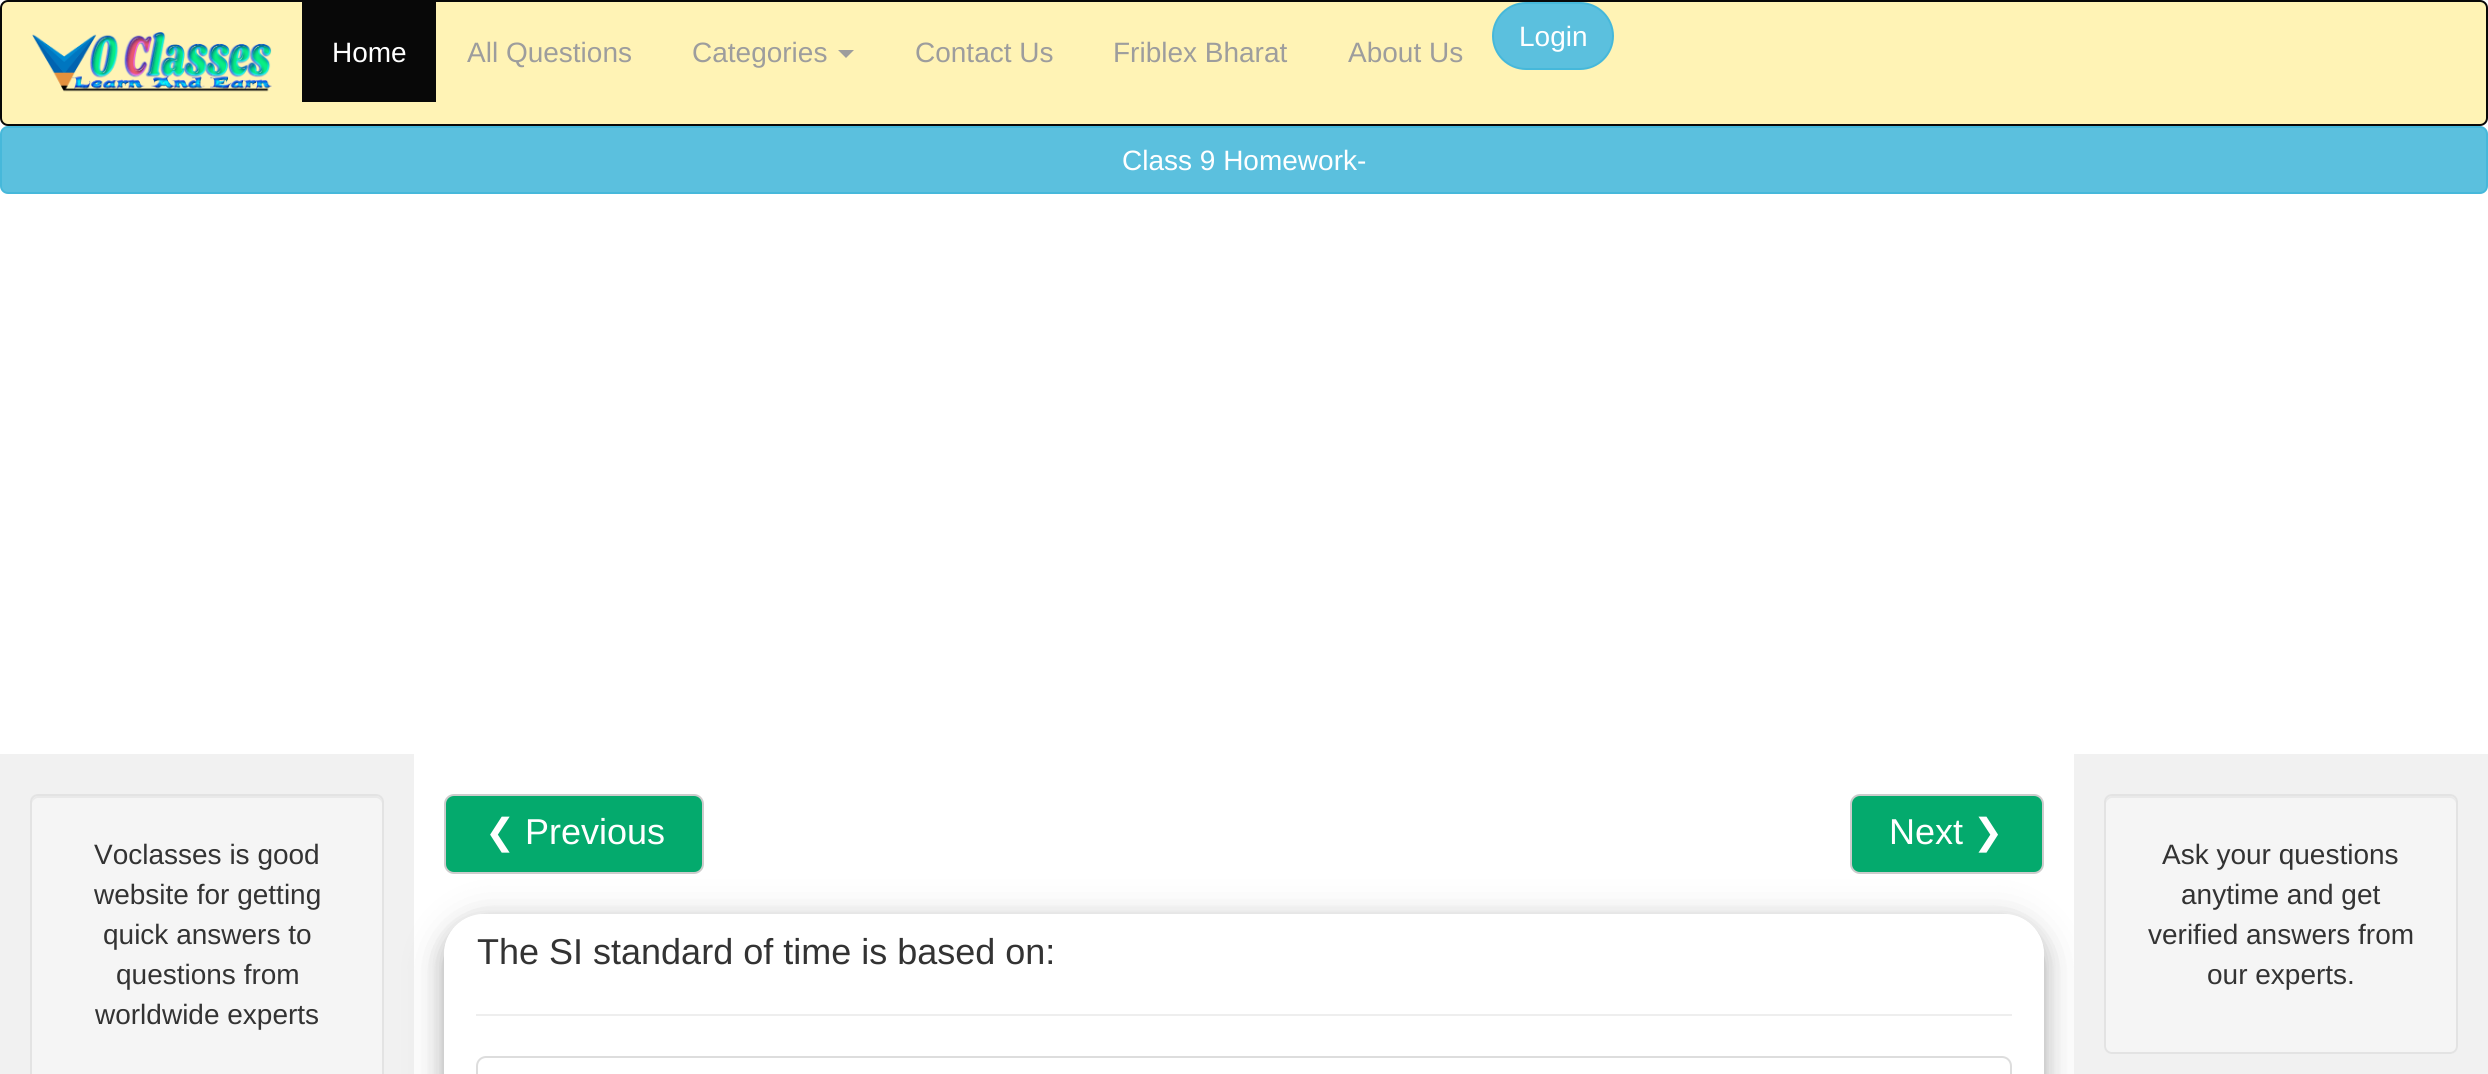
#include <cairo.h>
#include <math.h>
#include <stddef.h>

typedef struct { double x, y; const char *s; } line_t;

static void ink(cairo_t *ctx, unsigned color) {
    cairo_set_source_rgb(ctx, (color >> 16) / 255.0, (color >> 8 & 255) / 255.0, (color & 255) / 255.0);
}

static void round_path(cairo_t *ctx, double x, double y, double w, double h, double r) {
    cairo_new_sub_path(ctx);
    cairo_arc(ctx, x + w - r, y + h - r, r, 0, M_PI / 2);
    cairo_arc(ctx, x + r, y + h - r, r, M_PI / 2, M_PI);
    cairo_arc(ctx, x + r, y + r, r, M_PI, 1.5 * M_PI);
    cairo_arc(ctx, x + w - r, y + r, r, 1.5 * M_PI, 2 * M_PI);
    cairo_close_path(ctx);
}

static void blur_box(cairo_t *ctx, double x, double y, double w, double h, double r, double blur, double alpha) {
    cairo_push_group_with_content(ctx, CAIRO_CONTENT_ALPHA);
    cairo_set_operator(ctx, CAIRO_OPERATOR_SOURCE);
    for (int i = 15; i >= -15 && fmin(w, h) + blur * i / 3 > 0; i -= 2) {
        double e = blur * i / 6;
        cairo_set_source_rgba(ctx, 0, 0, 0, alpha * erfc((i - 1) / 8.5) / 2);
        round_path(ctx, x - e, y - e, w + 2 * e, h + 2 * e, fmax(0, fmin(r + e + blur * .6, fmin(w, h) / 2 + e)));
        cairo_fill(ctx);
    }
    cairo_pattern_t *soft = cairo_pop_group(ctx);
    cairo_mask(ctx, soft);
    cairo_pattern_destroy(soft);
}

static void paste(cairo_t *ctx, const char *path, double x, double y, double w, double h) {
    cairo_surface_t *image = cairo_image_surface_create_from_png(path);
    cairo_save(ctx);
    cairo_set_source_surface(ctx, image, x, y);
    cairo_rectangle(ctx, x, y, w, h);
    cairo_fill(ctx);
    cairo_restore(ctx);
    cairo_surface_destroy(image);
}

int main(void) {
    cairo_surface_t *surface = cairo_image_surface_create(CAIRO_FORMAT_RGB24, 2488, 1074);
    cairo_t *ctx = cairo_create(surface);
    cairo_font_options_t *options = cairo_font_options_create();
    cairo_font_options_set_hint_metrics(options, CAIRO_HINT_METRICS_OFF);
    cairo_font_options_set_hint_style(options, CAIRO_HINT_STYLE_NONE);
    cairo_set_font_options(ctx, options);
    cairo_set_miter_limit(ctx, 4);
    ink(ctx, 0xFFFFFF);
    cairo_paint(ctx);
    ink(ctx, 0xFFF3B5);
    round_path(ctx, 1, 1, 2486, 124, 7);
    cairo_fill_preserve(ctx);
    ink(ctx, 0x080808);
    cairo_stroke(ctx);
    paste(ctx, "media/1.png", 32, 32, 240, 60);
    cairo_rectangle(ctx, 302, 2, 134, 100);
    cairo_fill(ctx);
    cairo_select_font_face(ctx, "Liberation Sans", CAIRO_FONT_SLANT_NORMAL, CAIRO_FONT_WEIGHT_NORMAL);
    cairo_set_font_size(ctx, 28);
    ink(ctx, 0xFFFFFF);
    cairo_move_to(ctx, 332, 62);
    cairo_show_text(ctx, "Home");
    ink(ctx, 0x9D9D9D);
    cairo_move_to(ctx, 467, 62);
    cairo_show_text(ctx, "All Questions");
    cairo_move_to(ctx, 692, 62);
    cairo_show_text(ctx, "Categories");
    cairo_new_path(ctx);
    cairo_move_to(ctx, 838, 50);
    cairo_line_to(ctx, 854, 50);
    cairo_line_to(ctx, 846, 58);
    cairo_close_path(ctx);
    cairo_fill(ctx);
    {
        static const line_t items[] = {
            {915, 62, "Contact Us"},
            {1113, 62, "Friblex Bharat"},
            {1348, 62, "About Us"},
        };
        for (size_t i = 0; i < sizeof items / sizeof *items; i++) {
            cairo_move_to(ctx, items[i].x, items[i].y);
            cairo_show_text(ctx, items[i].s);
        }
    }
    ink(ctx, 0x5BC0DE);
    round_path(ctx, 1493, 3, 120, 66, 33);
    cairo_fill_preserve(ctx);
    ink(ctx, 0x46B8DA);
    cairo_stroke(ctx);
    ink(ctx, 0xFFFFFF);
    cairo_move_to(ctx, 1519, 46);
    cairo_show_text(ctx, "Login");
    ink(ctx, 0x5BC0DE);
    round_path(ctx, 1, 127, 2486, 66, 7);
    cairo_fill_preserve(ctx);
    ink(ctx, 0x46B8DA);
    cairo_stroke(ctx);
    ink(ctx, 0xFFFFFF);
    cairo_move_to(ctx, 1122, 170);
    cairo_show_text(ctx, "Class 9 Homework-");
    ink(ctx, 0xF1F1F1);
    cairo_rectangle(ctx, 0, 754, 414, 320);
    cairo_fill(ctx);
    ink(ctx, 0xF5F5F5);
    round_path(ctx, 30, 794, 354, 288, 8);
    cairo_fill(ctx);
    ink(ctx, 0xE9E9E9);
    cairo_new_path(ctx);
    cairo_move_to(ctx, 38, 798);
    cairo_line_to(ctx, 376, 798);
    cairo_curve_to(ctx, 379, 798, 382, 801, 382, 804);
    cairo_line_to(ctx, 382, 802);
    cairo_curve_to(ctx, 382, 799, 379, 796, 376, 796);
    cairo_line_to(ctx, 38, 796);
    cairo_curve_to(ctx, 35, 796, 32, 799, 32, 802);
    cairo_line_to(ctx, 32, 804);
    cairo_curve_to(ctx, 32, 801, 35, 798, 38, 798);
    cairo_close_path(ctx);
    cairo_fill(ctx);
    round_path(ctx, 31, 795, 352, 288, 7);
    ink(ctx, 0xE3E3E3);
    cairo_stroke(ctx);
    ink(ctx, 0x333333);
    {
        static const line_t items[] = {
            {94, 864, "Voclasses is good"},
            {94, 904, "website for getting"},
            {103, 944, "quick answers to"},
            {116, 984, "questions from"},
            {95, 1024, "worldwide experts"},
        };
        for (size_t i = 0; i < sizeof items / sizeof *items; i++) {
            cairo_move_to(ctx, items[i].x, items[i].y);
            cairo_show_text(ctx, items[i].s);
        }
    }
    cairo_save(ctx);
    cairo_set_fill_rule(ctx, CAIRO_FILL_RULE_EVEN_ODD);
    cairo_new_path(ctx);
    cairo_move_to(ctx, 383, 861);
    cairo_line_to(ctx, 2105, 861);
    cairo_line_to(ctx, 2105, 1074);
    cairo_line_to(ctx, 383, 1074);
    cairo_close_path(ctx);
    cairo_move_to(ctx, 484, 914);
    cairo_line_to(ctx, 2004, 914);
    cairo_curve_to(ctx, 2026, 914, 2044, 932, 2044, 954);
    cairo_line_to(ctx, 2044, 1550);
    cairo_curve_to(ctx, 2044, 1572, 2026, 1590, 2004, 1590);
    cairo_line_to(ctx, 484, 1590);
    cairo_curve_to(ctx, 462, 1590, 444, 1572, 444, 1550);
    cairo_line_to(ctx, 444, 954);
    cairo_curve_to(ctx, 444, 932, 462, 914, 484, 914);
    cairo_close_path(ctx);
    cairo_clip(ctx);
    ink(ctx, 0x000000);
    blur_box(ctx, 444, 922, 1600, 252, 40, 20, 0.19);
    cairo_restore(ctx);
    ink(ctx, 0x04AA6D);
    round_path(ctx, 445, 795, 258, 78, 9);
    cairo_fill_preserve(ctx);
    ink(ctx, 0xCCCCCC);
    cairo_stroke(ctx);
    cairo_select_font_face(ctx, "DejaVu Sans", CAIRO_FONT_SLANT_NORMAL, CAIRO_FONT_WEIGHT_NORMAL);
    cairo_set_font_size(ctx, 36);
    ink(ctx, 0xFFFFFF);
    cairo_move_to(ctx, 485, 844);
    cairo_show_text(ctx, "❮");
    cairo_select_font_face(ctx, "Liberation Sans", CAIRO_FONT_SLANT_NORMAL, CAIRO_FONT_WEIGHT_NORMAL);
    cairo_move_to(ctx, 525, 844);
    cairo_show_text(ctx, "Previous");
    ink(ctx, 0x04AA6D);
    round_path(ctx, 1851, 795, 192, 78, 9);
    cairo_fill_preserve(ctx);
    ink(ctx, 0xCCCCCC);
    cairo_stroke(ctx);
    ink(ctx, 0xFFFFFF);
    cairo_move_to(ctx, 1889, 844);
    cairo_show_text(ctx, "Next");
    cairo_select_font_face(ctx, "DejaVu Sans", CAIRO_FONT_SLANT_NORMAL, CAIRO_FONT_WEIGHT_NORMAL);
    cairo_move_to(ctx, 1973, 844);
    cairo_show_text(ctx, "❯");
    cairo_save(ctx);
    cairo_set_fill_rule(ctx, CAIRO_FILL_RULE_EVEN_ODD);
    cairo_new_path(ctx);
    cairo_move_to(ctx, 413, 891);
    cairo_line_to(ctx, 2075, 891);
    cairo_line_to(ctx, 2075, 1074);
    cairo_line_to(ctx, 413, 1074);
    cairo_close_path(ctx);
    cairo_move_to(ctx, 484, 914);
    cairo_line_to(ctx, 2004, 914);
    cairo_curve_to(ctx, 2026, 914, 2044, 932, 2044, 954);
    cairo_line_to(ctx, 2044, 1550);
    cairo_curve_to(ctx, 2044, 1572, 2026, 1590, 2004, 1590);
    cairo_line_to(ctx, 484, 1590);
    cairo_curve_to(ctx, 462, 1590, 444, 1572, 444, 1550);
    cairo_line_to(ctx, 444, 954);
    cairo_curve_to(ctx, 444, 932, 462, 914, 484, 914);
    cairo_close_path(ctx);
    cairo_clip(ctx);
    ink(ctx, 0x000000);
    blur_box(ctx, 444, 922, 1600, 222, 40, 10, 0.2);
    cairo_restore(ctx);
    cairo_select_font_face(ctx, "Liberation Sans", CAIRO_FONT_SLANT_NORMAL, CAIRO_FONT_WEIGHT_NORMAL);
    ink(ctx, 0x333333);
    cairo_move_to(ctx, 477, 964);
    cairo_show_text(ctx, "The SI standard of time is based on:");
    ink(ctx, 0xEEEEEE);
    cairo_rectangle(ctx, 476, 1014, 1536, 2);
    cairo_fill(ctx);
    round_path(ctx, 477, 1057, 1534, 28, 9);
    ink(ctx, 0xDDDDDD);
    cairo_stroke(ctx);
    ink(ctx, 0xF1F1F1);
    cairo_rectangle(ctx, 2074, 754, 414, 320);
    cairo_fill(ctx);
    ink(ctx, 0xF5F5F5);
    round_path(ctx, 2104, 794, 354, 260, 8);
    cairo_fill(ctx);
    ink(ctx, 0xE9E9E9);
    cairo_new_path(ctx);
    cairo_move_to(ctx, 2112, 798);
    cairo_line_to(ctx, 2450, 798);
    cairo_curve_to(ctx, 2453, 798, 2456, 801, 2456, 804);
    cairo_line_to(ctx, 2456, 802);
    cairo_curve_to(ctx, 2456, 799, 2453, 796, 2450, 796);
    cairo_line_to(ctx, 2112, 796);
    cairo_curve_to(ctx, 2109, 796, 2106, 799, 2106, 802);
    cairo_line_to(ctx, 2106, 804);
    cairo_curve_to(ctx, 2106, 801, 2109, 798, 2112, 798);
    cairo_close_path(ctx);
    cairo_fill(ctx);
    round_path(ctx, 2105, 795, 352, 258, 7);
    ink(ctx, 0xE3E3E3);
    cairo_stroke(ctx);
    cairo_set_font_size(ctx, 28);
    ink(ctx, 0x333333);
    {
        static const line_t items[] = {
            {2162, 864, "Ask your questions"},
            {2181, 904, "anytime and get"},
            {2148, 944, "verified answers from"},
            {2207, 984, "our experts."},
        };
        for (size_t i = 0; i < sizeof items / sizeof *items; i++) {
            cairo_move_to(ctx, items[i].x, items[i].y);
            cairo_show_text(ctx, items[i].s);
        }
    }
    cairo_surface_write_to_png(surface, "image.png");
    cairo_font_options_destroy(options);
    cairo_destroy(ctx);
    cairo_surface_destroy(surface);
    return 0;
}
